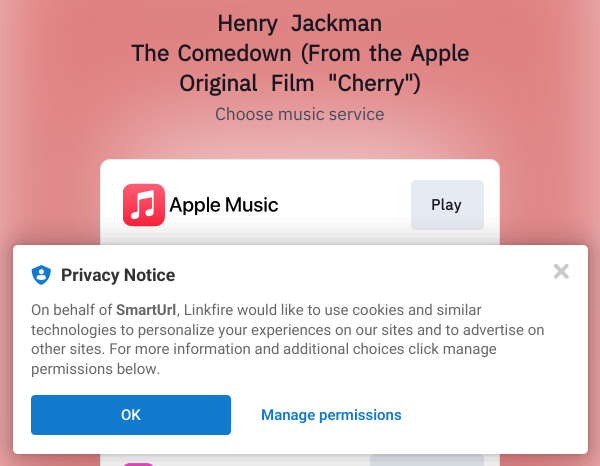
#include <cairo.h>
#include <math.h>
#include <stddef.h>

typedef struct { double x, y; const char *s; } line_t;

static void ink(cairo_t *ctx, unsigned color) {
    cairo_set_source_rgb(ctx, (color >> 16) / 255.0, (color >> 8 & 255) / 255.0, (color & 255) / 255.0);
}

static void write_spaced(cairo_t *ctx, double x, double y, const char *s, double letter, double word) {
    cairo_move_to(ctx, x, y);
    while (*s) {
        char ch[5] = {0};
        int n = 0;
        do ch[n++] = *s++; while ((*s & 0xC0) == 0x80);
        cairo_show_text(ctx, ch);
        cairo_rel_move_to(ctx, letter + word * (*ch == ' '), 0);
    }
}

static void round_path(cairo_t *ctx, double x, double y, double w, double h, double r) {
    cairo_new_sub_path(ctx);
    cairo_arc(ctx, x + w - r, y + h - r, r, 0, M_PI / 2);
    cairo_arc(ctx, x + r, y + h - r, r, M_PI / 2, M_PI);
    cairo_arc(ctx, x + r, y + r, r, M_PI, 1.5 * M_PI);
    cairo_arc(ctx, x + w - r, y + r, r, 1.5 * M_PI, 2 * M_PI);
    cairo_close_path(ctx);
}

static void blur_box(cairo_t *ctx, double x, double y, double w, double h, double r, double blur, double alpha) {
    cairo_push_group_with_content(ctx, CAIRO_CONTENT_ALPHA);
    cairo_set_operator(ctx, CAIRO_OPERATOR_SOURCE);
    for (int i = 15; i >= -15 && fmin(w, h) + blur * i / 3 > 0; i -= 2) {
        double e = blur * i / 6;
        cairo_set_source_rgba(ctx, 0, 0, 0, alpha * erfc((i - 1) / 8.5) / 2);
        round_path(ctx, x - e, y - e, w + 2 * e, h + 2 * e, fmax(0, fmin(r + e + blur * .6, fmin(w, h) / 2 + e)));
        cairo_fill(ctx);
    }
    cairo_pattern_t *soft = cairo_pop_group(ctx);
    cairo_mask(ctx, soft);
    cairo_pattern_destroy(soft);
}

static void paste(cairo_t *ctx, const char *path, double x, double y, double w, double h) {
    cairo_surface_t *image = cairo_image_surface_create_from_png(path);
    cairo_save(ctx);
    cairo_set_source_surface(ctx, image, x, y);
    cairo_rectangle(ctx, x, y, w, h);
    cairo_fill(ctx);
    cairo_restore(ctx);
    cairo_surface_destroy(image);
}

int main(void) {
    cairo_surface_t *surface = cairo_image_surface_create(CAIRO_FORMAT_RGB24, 600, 466);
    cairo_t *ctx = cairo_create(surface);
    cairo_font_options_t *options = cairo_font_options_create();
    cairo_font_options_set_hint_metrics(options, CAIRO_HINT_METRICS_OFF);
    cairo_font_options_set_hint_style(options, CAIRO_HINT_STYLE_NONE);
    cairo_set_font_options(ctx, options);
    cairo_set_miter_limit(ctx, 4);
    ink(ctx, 0xFFFFFF);
    cairo_paint(ctx);
    paste(ctx, "media/1.png", 0, 0, 600, 466);
    cairo_select_font_face(ctx, "IBM Plex Sans", CAIRO_FONT_SLANT_NORMAL, CAIRO_FONT_WEIGHT_BOLD);
    cairo_set_font_size(ctx, 22.5);
    ink(ctx, 0x181721);
    write_spaced(ctx, 217, 31, "Henry Jackman", 0, 8);
    write_spaced(ctx, 131, 61, "The Comedown (From the Apple", 0, 3);
    write_spaced(ctx, 179, 91, "Original Film \"Cherry\")", 0, 8);
    cairo_select_font_face(ctx, "IBM Plex Sans", CAIRO_FONT_SLANT_NORMAL, CAIRO_FONT_WEIGHT_NORMAL);
    cairo_set_font_size(ctx, 17.5);
    ink(ctx, 0x454B5F);
    cairo_move_to(ctx, 215, 120);
    cairo_show_text(ctx, "Choose music service");
    round_path(ctx, 100.5, 159.5, 399, 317, 9.5);
    ink(ctx, 0xE6EAF2);
    cairo_set_line_width(ctx, 1);
    cairo_stroke(ctx);
    ink(ctx, 0xFFFFFF);
    round_path(ctx, 101, 160, 398, 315, 9);
    cairo_fill(ctx);
    paste(ctx, "media/2.png", 123, 183, 155, 44);
    ink(ctx, 0xE6EAF2);
    round_path(ctx, 411, 180, 73, 50, 5);
    cairo_fill(ctx);
    cairo_select_font_face(ctx, "IBM Plex Sans", CAIRO_FONT_SLANT_NORMAL, CAIRO_FONT_WEIGHT_BOLD);
    cairo_set_font_size(ctx, 15);
    ink(ctx, 0x181721);
    write_spaced(ctx, 431, 210, "Play", 0.5, 0);
    paste(ctx, "media/3.png", 124, 463, 29, 3);
    ink(ctx, 0xE6EAF2);
    round_path(ctx, 370, 454, 114, 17, 5);
    cairo_fill(ctx);
    ink(ctx, 0x000000);
    blur_box(ctx, 13, 245, 575, 209, 5, 2.5, 0.12);
    blur_box(ctx, 13, 245, 575, 209, 5, 15, 0.3);
    ink(ctx, 0xFFFFFF);
    round_path(ctx, 13, 245, 575, 209, 5);
    cairo_fill(ctx);
    paste(ctx, "media/4.png", 31, 265, 20, 20);
    cairo_select_font_face(ctx, "Roboto", CAIRO_FONT_SLANT_NORMAL, CAIRO_FONT_WEIGHT_BOLD);
    cairo_set_font_size(ctx, 17.5);
    ink(ctx, 0x323232);
    cairo_move_to(ctx, 61, 281);
    cairo_show_text(ctx, "Privacy Notice");
    cairo_select_font_face(ctx, "Roboto", CAIRO_FONT_SLANT_NORMAL, CAIRO_FONT_WEIGHT_NORMAL);
    cairo_set_font_size(ctx, 15);
    ink(ctx, 0x686868);
    cairo_move_to(ctx, 31, 315);
    cairo_show_text(ctx, "On behalf of");
    cairo_select_font_face(ctx, "Roboto", CAIRO_FONT_SLANT_NORMAL, CAIRO_FONT_WEIGHT_BOLD);
    cairo_move_to(ctx, 116, 315);
    cairo_show_text(ctx, "SmartUrl");
    cairo_select_font_face(ctx, "Roboto", CAIRO_FONT_SLANT_NORMAL, CAIRO_FONT_WEIGHT_NORMAL);
    {
        static const line_t items[] = {
            {177, 315, ", Linkfire would like to use cookies and similar"},
            {31, 335, "technologies to personalize your experiences on our sites and to advertise on"},
            {31, 354, "other sites. For more information and additional choices click manage"},
            {31, 374, "permissions below."},
        };
        for (size_t i = 0; i < sizeof items / sizeof *items; i++) {
            cairo_move_to(ctx, items[i].x, items[i].y);
            cairo_show_text(ctx, items[i].s);
        }
    }
    ink(ctx, 0x137BCF);
    round_path(ctx, 31, 395, 200, 40, 4);
    cairo_fill(ctx);
    cairo_select_font_face(ctx, "Roboto Medium", CAIRO_FONT_SLANT_NORMAL, CAIRO_FONT_WEIGHT_NORMAL);
    ink(ctx, 0xFFFFFF);
    cairo_move_to(ctx, 121, 420);
    cairo_show_text(ctx, "OK");
    cairo_select_font_face(ctx, "Roboto SemiBold", CAIRO_FONT_SLANT_NORMAL, CAIRO_FONT_WEIGHT_NORMAL);
    ink(ctx, 0x137BCF);
    cairo_move_to(ctx, 261, 420);
    cairo_show_text(ctx, "Manage permissions");
    paste(ctx, "media/5.png", 554, 264, 15, 15);
    cairo_surface_write_to_png(surface, "image.png");
    cairo_font_options_destroy(options);
    cairo_destroy(ctx);
    cairo_surface_destroy(surface);
    return 0;
}
